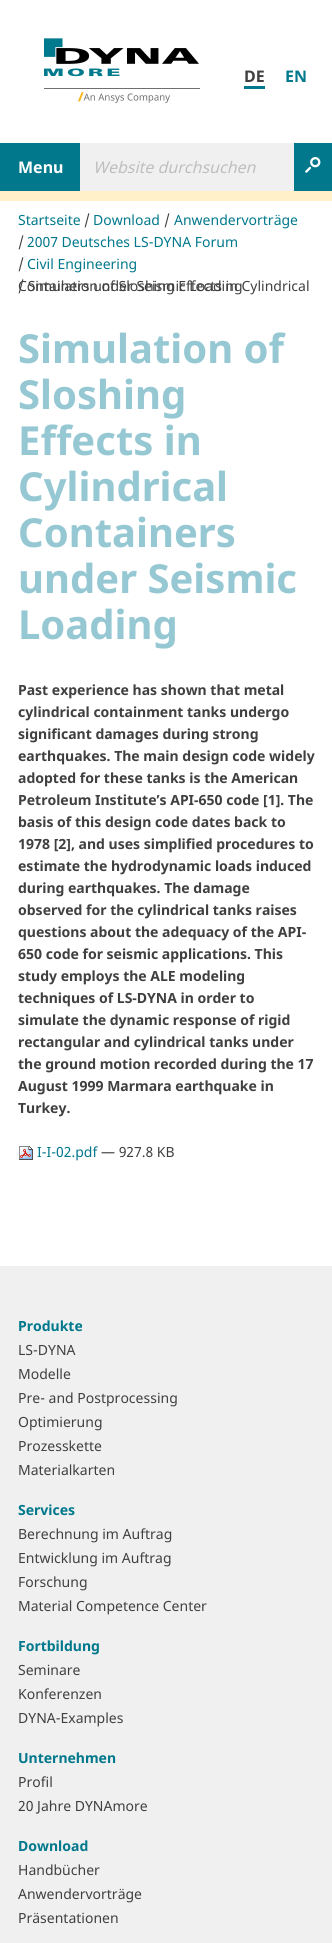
#include <cairo.h>
#include <math.h>
#include <stddef.h>

typedef struct { double x, y; const char *s; } line_t;

static void ink(cairo_t *ctx, unsigned color) {
    cairo_set_source_rgb(ctx, (color >> 16) / 255.0, (color >> 8 & 255) / 255.0, (color & 255) / 255.0);
}

static void paste(cairo_t *ctx, const char *path, double x, double y, double w, double h) {
    cairo_surface_t *image = cairo_image_surface_create_from_png(path);
    cairo_save(ctx);
    cairo_set_source_surface(ctx, image, x, y);
    cairo_rectangle(ctx, x, y, w, h);
    cairo_fill(ctx);
    cairo_restore(ctx);
    cairo_surface_destroy(image);
}

int main(void) {
    cairo_surface_t *surface = cairo_image_surface_create(CAIRO_FORMAT_RGB24, 332, 1943);
    cairo_t *ctx = cairo_create(surface);
    cairo_font_options_t *options = cairo_font_options_create();
    cairo_font_options_set_hint_metrics(options, CAIRO_HINT_METRICS_OFF);
    cairo_font_options_set_hint_style(options, CAIRO_HINT_STYLE_NONE);
    cairo_set_font_options(ctx, options);
    cairo_set_miter_limit(ctx, 4);
    ink(ctx, 0xFFFFFF);
    cairo_paint(ctx);
    paste(ctx, "media/1.png", 43, 38, 157, 65);
    ink(ctx, 0x01788C);
    cairo_rectangle(ctx, 244, 86, 21, 3);
    cairo_fill(ctx);
    cairo_select_font_face(ctx, "Noto Sans", CAIRO_FONT_SLANT_NORMAL, CAIRO_FONT_WEIGHT_BOLD);
    cairo_set_font_size(ctx, 16);
    ink(ctx, 0x404040);
    cairo_move_to(ctx, 244, 82);
    cairo_show_text(ctx, "DE");
    ink(ctx, 0x01788C);
    cairo_move_to(ctx, 285, 82);
    cairo_show_text(ctx, "EN");
    cairo_rectangle(ctx, 0, 143, 80, 48);
    cairo_fill(ctx);
    ink(ctx, 0xFFFFFF);
    cairo_move_to(ctx, 18, 173);
    cairo_show_text(ctx, "Menu");
    ink(ctx, 0x01788C);
    cairo_rectangle(ctx, 294, 143, 38, 48);
    cairo_fill(ctx);
    ink(ctx, 0xF0F0F0);
    cairo_rectangle(ctx, 80, 143, 214, 48);
    cairo_fill(ctx);
    cairo_select_font_face(ctx, "Noto Sans", CAIRO_FONT_SLANT_ITALIC, CAIRO_FONT_WEIGHT_NORMAL);
    ink(ctx, 0xBEBEBE);
    cairo_move_to(ctx, 93, 173);
    cairo_show_text(ctx, "Website durchsuchen");
    paste(ctx, "media/2.png", 305, 157, 16, 16);
    ink(ctx, 0xFFF0C9);
    cairo_rectangle(ctx, 0, 191, 332, 10);
    cairo_fill(ctx);
    cairo_select_font_face(ctx, "Noto Sans", CAIRO_FONT_SLANT_NORMAL, CAIRO_FONT_WEIGHT_NORMAL);
    cairo_set_font_size(ctx, 14);
    ink(ctx, 0x01788C);
    cairo_move_to(ctx, 18, 225);
    cairo_show_text(ctx, "Startseite");
    ink(ctx, 0x404040);
    cairo_move_to(ctx, 84, 225);
    cairo_show_text(ctx, "/");
    ink(ctx, 0x01788C);
    cairo_move_to(ctx, 93, 225);
    cairo_show_text(ctx, "Download");
    ink(ctx, 0x404040);
    cairo_move_to(ctx, 164, 225);
    cairo_show_text(ctx, "/");
    ink(ctx, 0x01788C);
    cairo_move_to(ctx, 174, 225);
    cairo_show_text(ctx, "Anwendervorträge");
    ink(ctx, 0x404040);
    cairo_move_to(ctx, 18, 247);
    cairo_show_text(ctx, "/");
    ink(ctx, 0x01788C);
    cairo_move_to(ctx, 27, 247);
    cairo_show_text(ctx, "2007 Deutsches LS-DYNA Forum");
    ink(ctx, 0x404040);
    cairo_move_to(ctx, 18, 269);
    cairo_show_text(ctx, "/");
    ink(ctx, 0x01788C);
    cairo_move_to(ctx, 27, 269);
    cairo_show_text(ctx, "Civil Engineering");
    ink(ctx, 0x404040);
    cairo_move_to(ctx, 18, 291);
    cairo_show_text(ctx, "/ Simulation of Sloshing Effects in Cylindrical");
    cairo_move_to(ctx, 18, 291);
    cairo_show_text(ctx, "Containers under Seismic Loading");
    cairo_select_font_face(ctx, "Noto Sans", CAIRO_FONT_SLANT_NORMAL, CAIRO_FONT_WEIGHT_BOLD);
    cairo_set_font_size(ctx, 40);
    ink(ctx, 0x96C8D3);
    {
        static const line_t items[] = {
            {18, 363, "Simulation of"},
            {18, 409, "Sloshing"},
            {18, 455, "Effects in"},
            {18, 501, "Cylindrical"},
            {18, 547, "Containers"},
            {18, 593, "under Seismic"},
            {18, 639, "Loading"},
        };
        for (size_t i = 0; i < sizeof items / sizeof *items; i++) {
            cairo_move_to(ctx, items[i].x, items[i].y);
            cairo_show_text(ctx, items[i].s);
        }
    }
    cairo_set_font_size(ctx, 14);
    ink(ctx, 0x404040);
    {
        static const line_t items[] = {
            {18, 695, "Past experience has shown that metal"},
            {18, 717, "cylindrical containment tanks undergo"},
            {18, 739, "significant damages during strong"},
            {18, 761, "earthquakes. The main design code widely"},
            {18, 783, "adopted for these tanks is the American"},
            {18, 805, "Petroleum Institute’s API-650 code [1]. The"},
            {18, 827, "basis of this design code dates back to"},
            {18, 849, "1978 [2], and uses simplified procedures to"},
            {18, 871, "estimate the hydrodynamic loads induced"},
            {18, 893, "during earthquakes. The damage"},
            {18, 915, "observed for the cylindrical tanks raises"},
            {18, 937, "questions about the adequacy of the API-"},
            {18, 959, "650 code for seismic applications. This"},
            {18, 981, "study employs the ALE modeling"},
            {18, 1003, "techniques of LS-DYNA in order to"},
            {18, 1025, "simulate the dynamic response of rigid"},
            {18, 1047, "rectangular and cylindrical tanks under"},
            {18, 1069, "the ground motion recorded during the 17"},
            {18, 1091, "August 1999 Marmara earthquake in"},
            {18, 1113, "Turkey."},
        };
        for (size_t i = 0; i < sizeof items / sizeof *items; i++) {
            cairo_move_to(ctx, items[i].x, items[i].y);
            cairo_show_text(ctx, items[i].s);
        }
    }
    paste(ctx, "media/3.png", 19, 1146, 14, 14);
    cairo_select_font_face(ctx, "Noto Sans", CAIRO_FONT_SLANT_NORMAL, CAIRO_FONT_WEIGHT_NORMAL);
    ink(ctx, 0x01788C);
    cairo_move_to(ctx, 37, 1157);
    cairo_show_text(ctx, "I-I-02.pdf");
    ink(ctx, 0x404040);
    cairo_move_to(ctx, 101, 1157);
    cairo_show_text(ctx, "— 927.8 KB");
    ink(ctx, 0xF0F0F0);
    cairo_rectangle(ctx, 0, 1266, 332, 677);
    cairo_fill(ctx);
    cairo_select_font_face(ctx, "Noto Sans", CAIRO_FONT_SLANT_NORMAL, CAIRO_FONT_WEIGHT_BOLD);
    ink(ctx, 0x01788C);
    cairo_move_to(ctx, 18, 1331);
    cairo_show_text(ctx, "Produkte");
    cairo_select_font_face(ctx, "Noto Sans", CAIRO_FONT_SLANT_NORMAL, CAIRO_FONT_WEIGHT_NORMAL);
    ink(ctx, 0x404040);
    {
        static const line_t items[] = {
            {18, 1355, "LS-DYNA"},
            {18, 1379, "Modelle"},
            {18, 1403, "Pre- and Postprocessing"},
            {18, 1427, "Optimierung"},
            {18, 1451, "Prozesskette"},
            {18, 1475, "Materialkarten"},
        };
        for (size_t i = 0; i < sizeof items / sizeof *items; i++) {
            cairo_move_to(ctx, items[i].x, items[i].y);
            cairo_show_text(ctx, items[i].s);
        }
    }
    cairo_select_font_face(ctx, "Noto Sans", CAIRO_FONT_SLANT_NORMAL, CAIRO_FONT_WEIGHT_BOLD);
    ink(ctx, 0x01788C);
    cairo_move_to(ctx, 18, 1515);
    cairo_show_text(ctx, "Services");
    cairo_select_font_face(ctx, "Noto Sans", CAIRO_FONT_SLANT_NORMAL, CAIRO_FONT_WEIGHT_NORMAL);
    ink(ctx, 0x404040);
    {
        static const line_t items[] = {
            {18, 1539, "Berechnung im Auftrag"},
            {18, 1563, "Entwicklung im Auftrag"},
            {18, 1587, "Forschung"},
            {18, 1611, "Material Competence Center"},
        };
        for (size_t i = 0; i < sizeof items / sizeof *items; i++) {
            cairo_move_to(ctx, items[i].x, items[i].y);
            cairo_show_text(ctx, items[i].s);
        }
    }
    cairo_select_font_face(ctx, "Noto Sans", CAIRO_FONT_SLANT_NORMAL, CAIRO_FONT_WEIGHT_BOLD);
    ink(ctx, 0x01788C);
    cairo_move_to(ctx, 18, 1651);
    cairo_show_text(ctx, "Fortbildung");
    cairo_select_font_face(ctx, "Noto Sans", CAIRO_FONT_SLANT_NORMAL, CAIRO_FONT_WEIGHT_NORMAL);
    ink(ctx, 0x404040);
    {
        static const line_t items[] = {
            {18, 1675, "Seminare"},
            {18, 1699, "Konferenzen"},
            {18, 1723, "DYNA-Examples"},
        };
        for (size_t i = 0; i < sizeof items / sizeof *items; i++) {
            cairo_move_to(ctx, items[i].x, items[i].y);
            cairo_show_text(ctx, items[i].s);
        }
    }
    cairo_select_font_face(ctx, "Noto Sans", CAIRO_FONT_SLANT_NORMAL, CAIRO_FONT_WEIGHT_BOLD);
    ink(ctx, 0x01788C);
    cairo_move_to(ctx, 18, 1763);
    cairo_show_text(ctx, "Unternehmen");
    cairo_select_font_face(ctx, "Noto Sans", CAIRO_FONT_SLANT_NORMAL, CAIRO_FONT_WEIGHT_NORMAL);
    ink(ctx, 0x404040);
    cairo_move_to(ctx, 18, 1787);
    cairo_show_text(ctx, "Profil");
    cairo_move_to(ctx, 18, 1811);
    cairo_show_text(ctx, "20 Jahre DYNAmore");
    cairo_select_font_face(ctx, "Noto Sans", CAIRO_FONT_SLANT_NORMAL, CAIRO_FONT_WEIGHT_BOLD);
    ink(ctx, 0x01788C);
    cairo_move_to(ctx, 18, 1851);
    cairo_show_text(ctx, "Download");
    cairo_select_font_face(ctx, "Noto Sans", CAIRO_FONT_SLANT_NORMAL, CAIRO_FONT_WEIGHT_NORMAL);
    ink(ctx, 0x404040);
    {
        static const line_t items[] = {
            {18, 1875, "Handbücher"},
            {18, 1899, "Anwendervorträge"},
            {18, 1923, "Präsentationen"},
        };
        for (size_t i = 0; i < sizeof items / sizeof *items; i++) {
            cairo_move_to(ctx, items[i].x, items[i].y);
            cairo_show_text(ctx, items[i].s);
        }
    }
    cairo_surface_write_to_png(surface, "image.png");
    cairo_font_options_destroy(options);
    cairo_destroy(ctx);
    cairo_surface_destroy(surface);
    return 0;
}
